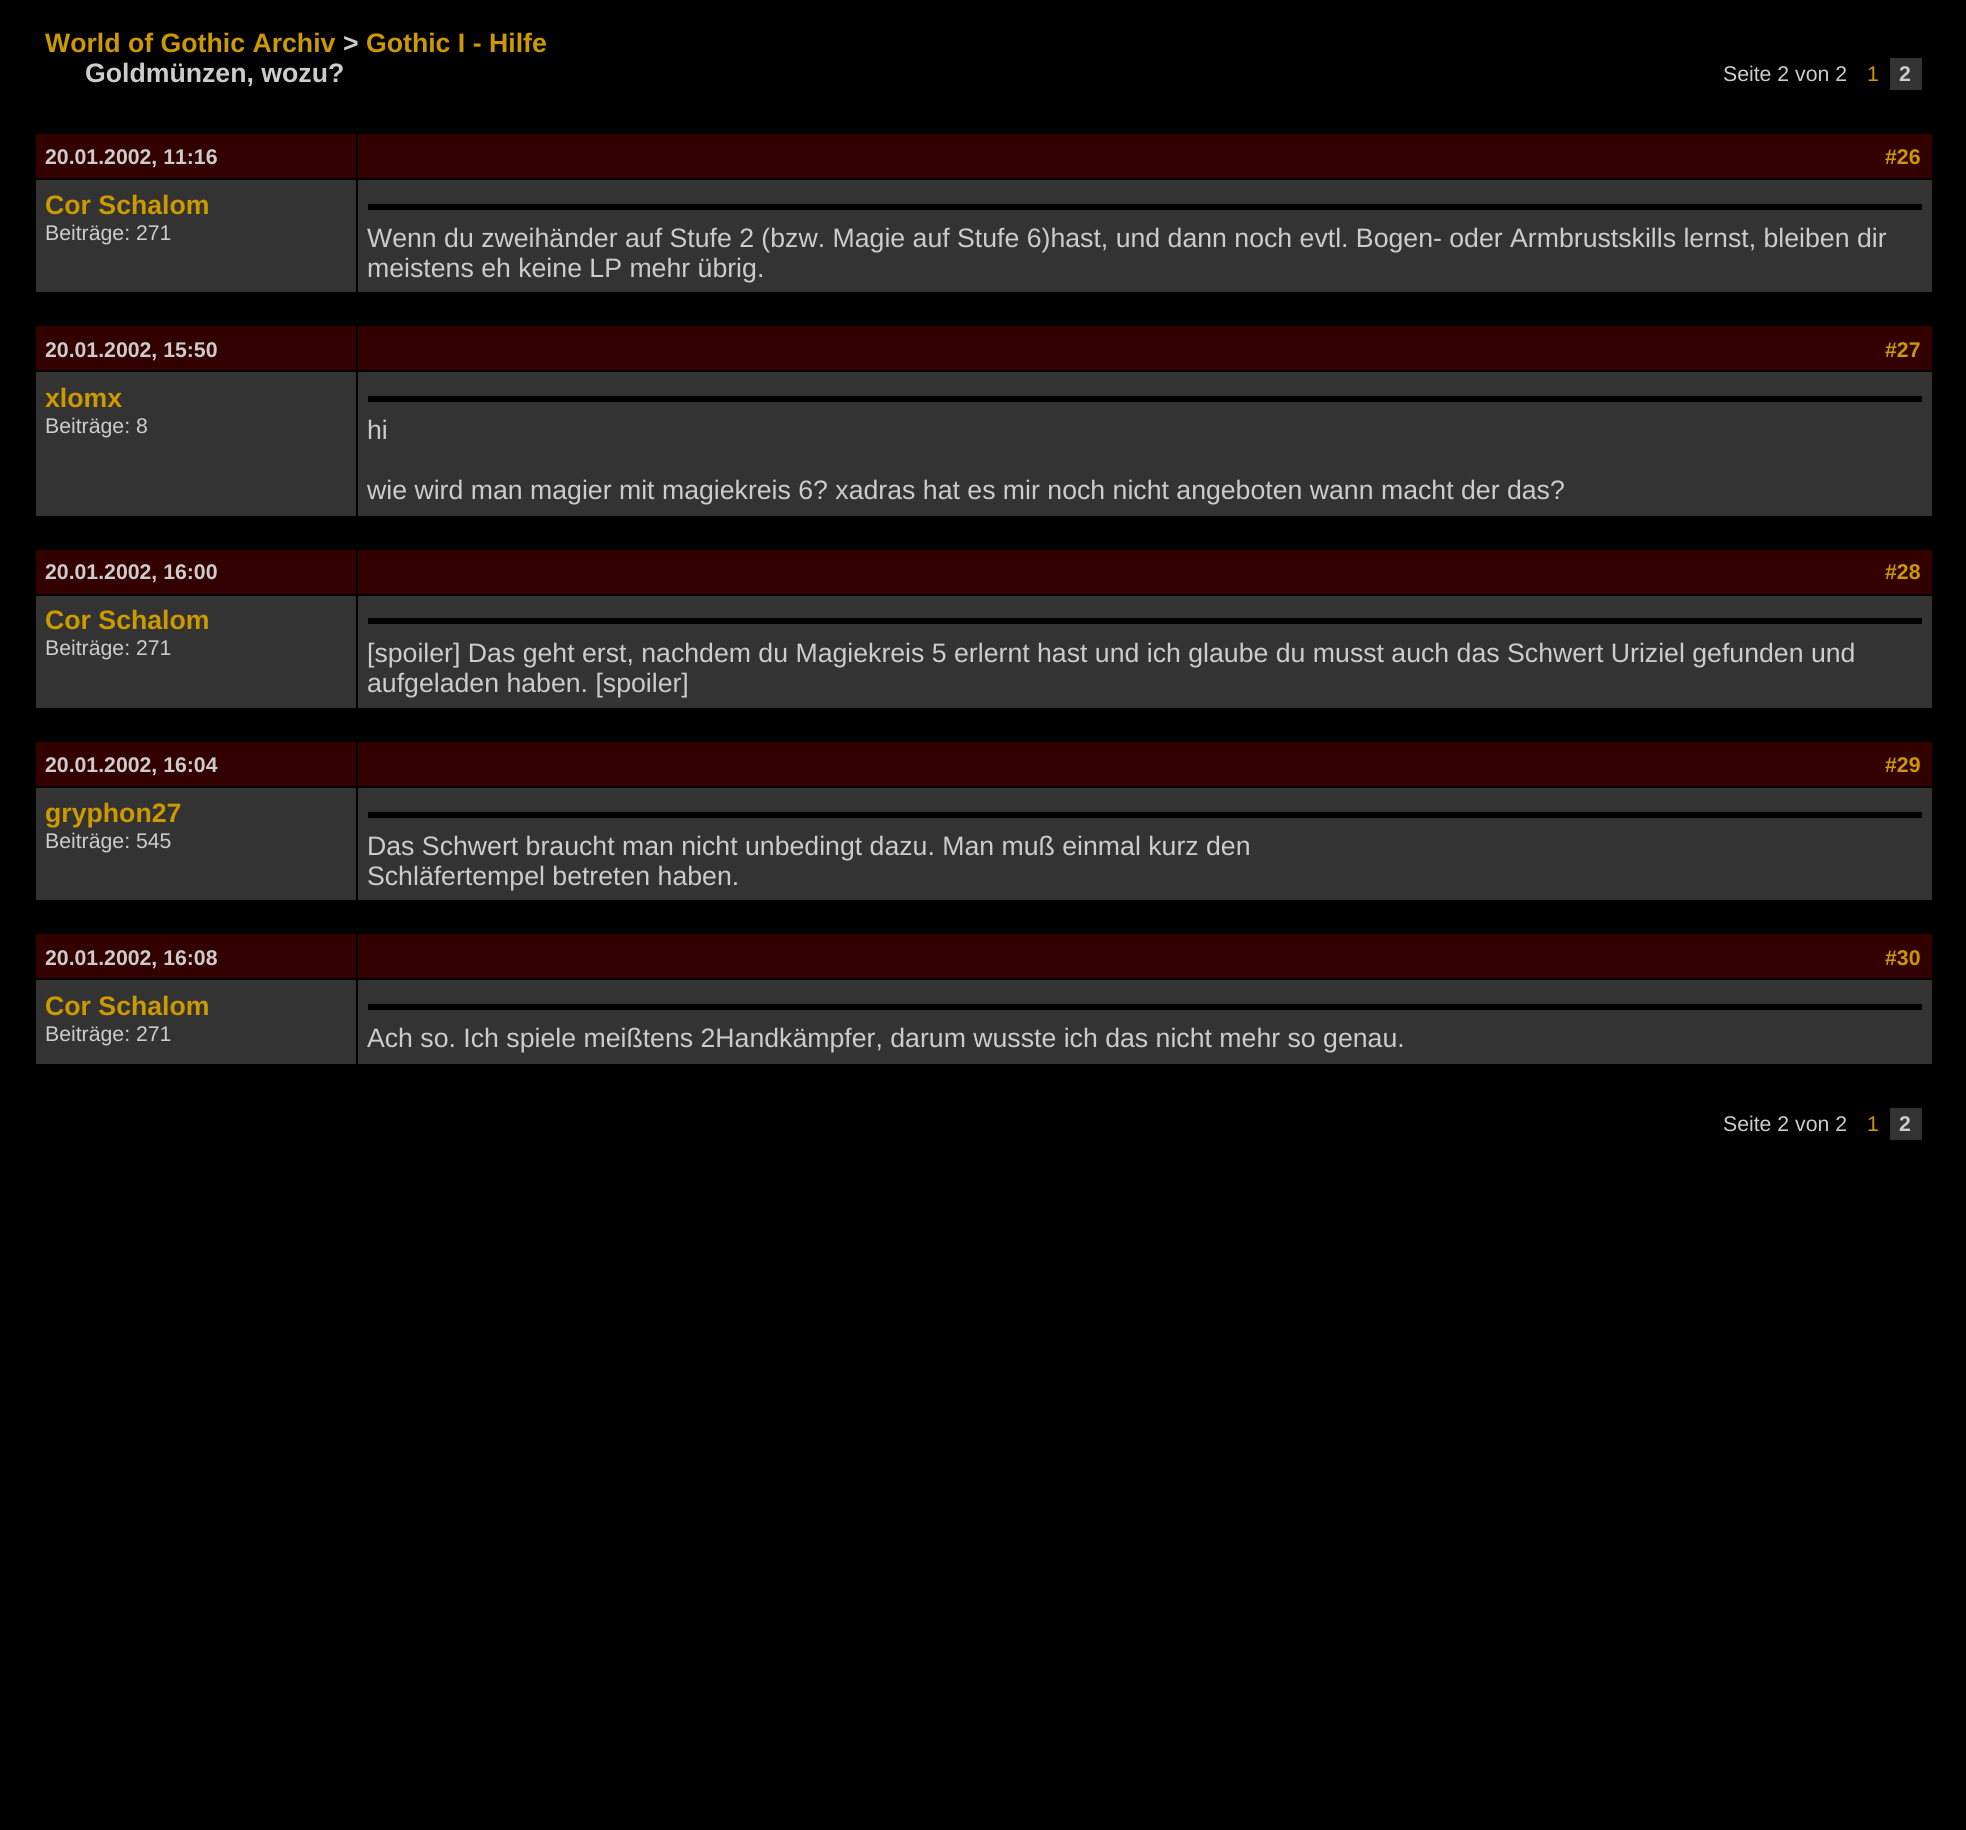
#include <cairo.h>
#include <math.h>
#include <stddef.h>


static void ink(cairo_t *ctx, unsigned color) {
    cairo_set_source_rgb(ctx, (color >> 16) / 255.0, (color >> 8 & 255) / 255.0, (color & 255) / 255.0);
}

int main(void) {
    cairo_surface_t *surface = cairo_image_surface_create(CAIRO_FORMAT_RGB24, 1966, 1830);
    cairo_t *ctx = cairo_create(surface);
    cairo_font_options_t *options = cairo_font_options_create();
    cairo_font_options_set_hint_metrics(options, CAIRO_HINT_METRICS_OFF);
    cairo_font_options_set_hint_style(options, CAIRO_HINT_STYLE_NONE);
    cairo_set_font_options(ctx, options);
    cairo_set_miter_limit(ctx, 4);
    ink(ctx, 0x000000);
    cairo_paint(ctx);
    cairo_select_font_face(ctx, "Liberation Sans", CAIRO_FONT_SLANT_NORMAL, CAIRO_FONT_WEIGHT_BOLD);
    cairo_set_font_size(ctx, 26.67);
    ink(ctx, 0xCC9900);
    cairo_move_to(ctx, 45, 52);
    cairo_show_text(ctx, "World of Gothic Archiv");
    ink(ctx, 0xCCCCCC);
    cairo_move_to(ctx, 343, 52);
    cairo_show_text(ctx, ">");
    ink(ctx, 0xCC9900);
    cairo_move_to(ctx, 366, 52);
    cairo_show_text(ctx, "Gothic I - Hilfe");
    ink(ctx, 0xCCCCCC);
    cairo_move_to(ctx, 85, 82);
    cairo_show_text(ctx, "Goldmünzen, wozu?");
    cairo_select_font_face(ctx, "Liberation Sans", CAIRO_FONT_SLANT_NORMAL, CAIRO_FONT_WEIGHT_NORMAL);
    cairo_set_font_size(ctx, 21.25);
    cairo_move_to(ctx, 1723, 81);
    cairo_show_text(ctx, "Seite 2 von 2");
    ink(ctx, 0xCC9900);
    cairo_move_to(ctx, 1867, 81);
    cairo_show_text(ctx, "1");
    ink(ctx, 0x333333);
    cairo_rectangle(ctx, 1890, 58, 32, 32);
    cairo_fill(ctx);
    cairo_select_font_face(ctx, "Liberation Sans", CAIRO_FONT_SLANT_NORMAL, CAIRO_FONT_WEIGHT_BOLD);
    ink(ctx, 0xCCCCCC);
    cairo_move_to(ctx, 1899, 81);
    cairo_show_text(ctx, "2");
    ink(ctx, 0x330000);
    cairo_rectangle(ctx, 36, 134, 320, 44);
    cairo_fill(ctx);
    ink(ctx, 0xCCCCCC);
    cairo_move_to(ctx, 45, 164);
    cairo_show_text(ctx, "20.01.2002, 11:16");
    ink(ctx, 0x330000);
    cairo_rectangle(ctx, 358, 134, 1574, 44);
    cairo_fill(ctx);
    ink(ctx, 0xCC9900);
    cairo_move_to(ctx, 1885, 164);
    cairo_show_text(ctx, "#26");
    ink(ctx, 0x333333);
    cairo_rectangle(ctx, 36, 180, 320, 112);
    cairo_fill(ctx);
    cairo_set_font_size(ctx, 26.67);
    ink(ctx, 0xCC9900);
    cairo_move_to(ctx, 45, 214);
    cairo_show_text(ctx, "Cor Schalom");
    cairo_select_font_face(ctx, "Liberation Sans", CAIRO_FONT_SLANT_NORMAL, CAIRO_FONT_WEIGHT_NORMAL);
    cairo_set_font_size(ctx, 21.25);
    ink(ctx, 0xCCCCCC);
    cairo_move_to(ctx, 45, 240);
    cairo_show_text(ctx, "Beiträge: 271");
    ink(ctx, 0x333333);
    cairo_rectangle(ctx, 358, 180, 1574, 112);
    cairo_fill(ctx);
    ink(ctx, 0x000000);
    cairo_rectangle(ctx, 368, 204, 1554, 6);
    cairo_fill(ctx);
    cairo_set_font_size(ctx, 26.67);
    ink(ctx, 0xCCCCCC);
    cairo_move_to(ctx, 367, 247);
    cairo_show_text(ctx, "Wenn du zweihänder auf Stufe 2 (bzw. Magie auf Stufe 6)hast, und dann noch evtl. Bogen- oder Armbrustskills lernst, bleiben dir");
    cairo_move_to(ctx, 367, 277);
    cairo_show_text(ctx, "meistens eh keine LP mehr übrig.");
    ink(ctx, 0x330000);
    cairo_rectangle(ctx, 36, 326, 320, 44);
    cairo_fill(ctx);
    cairo_select_font_face(ctx, "Liberation Sans", CAIRO_FONT_SLANT_NORMAL, CAIRO_FONT_WEIGHT_BOLD);
    cairo_set_font_size(ctx, 21.25);
    ink(ctx, 0xCCCCCC);
    cairo_move_to(ctx, 45, 357);
    cairo_show_text(ctx, "20.01.2002, 15:50");
    ink(ctx, 0x330000);
    cairo_rectangle(ctx, 358, 326, 1574, 44);
    cairo_fill(ctx);
    ink(ctx, 0xCC9900);
    cairo_move_to(ctx, 1885, 357);
    cairo_show_text(ctx, "#27");
    ink(ctx, 0x333333);
    cairo_rectangle(ctx, 36, 372, 320, 144);
    cairo_fill(ctx);
    cairo_set_font_size(ctx, 26.67);
    ink(ctx, 0xCC9900);
    cairo_move_to(ctx, 45, 407);
    cairo_show_text(ctx, "xlomx");
    cairo_select_font_face(ctx, "Liberation Sans", CAIRO_FONT_SLANT_NORMAL, CAIRO_FONT_WEIGHT_NORMAL);
    cairo_set_font_size(ctx, 21.25);
    ink(ctx, 0xCCCCCC);
    cairo_move_to(ctx, 45, 433);
    cairo_show_text(ctx, "Beiträge: 8");
    ink(ctx, 0x333333);
    cairo_rectangle(ctx, 358, 372, 1574, 144);
    cairo_fill(ctx);
    ink(ctx, 0x000000);
    cairo_rectangle(ctx, 368, 396, 1554, 6);
    cairo_fill(ctx);
    cairo_set_font_size(ctx, 26.67);
    ink(ctx, 0xCCCCCC);
    cairo_move_to(ctx, 367, 439);
    cairo_show_text(ctx, "hi");
    cairo_move_to(ctx, 367, 499);
    cairo_show_text(ctx, "wie wird man magier mit magiekreis 6? xadras hat es mir noch nicht angeboten wann macht der das?");
    ink(ctx, 0x330000);
    cairo_rectangle(ctx, 36, 550, 320, 44);
    cairo_fill(ctx);
    cairo_select_font_face(ctx, "Liberation Sans", CAIRO_FONT_SLANT_NORMAL, CAIRO_FONT_WEIGHT_BOLD);
    cairo_set_font_size(ctx, 21.25);
    ink(ctx, 0xCCCCCC);
    cairo_move_to(ctx, 45, 579);
    cairo_show_text(ctx, "20.01.2002, 16:00");
    ink(ctx, 0x330000);
    cairo_rectangle(ctx, 358, 550, 1574, 44);
    cairo_fill(ctx);
    ink(ctx, 0xCC9900);
    cairo_move_to(ctx, 1885, 579);
    cairo_show_text(ctx, "#28");
    ink(ctx, 0x333333);
    cairo_rectangle(ctx, 36, 596, 320, 112);
    cairo_fill(ctx);
    cairo_set_font_size(ctx, 26.67);
    ink(ctx, 0xCC9900);
    cairo_move_to(ctx, 45, 629);
    cairo_show_text(ctx, "Cor Schalom");
    cairo_select_font_face(ctx, "Liberation Sans", CAIRO_FONT_SLANT_NORMAL, CAIRO_FONT_WEIGHT_NORMAL);
    cairo_set_font_size(ctx, 21.25);
    ink(ctx, 0xCCCCCC);
    cairo_move_to(ctx, 45, 655);
    cairo_show_text(ctx, "Beiträge: 271");
    ink(ctx, 0x333333);
    cairo_rectangle(ctx, 358, 596, 1574, 112);
    cairo_fill(ctx);
    ink(ctx, 0x000000);
    cairo_rectangle(ctx, 368, 618, 1554, 6);
    cairo_fill(ctx);
    cairo_set_font_size(ctx, 26.67);
    ink(ctx, 0xCCCCCC);
    cairo_move_to(ctx, 367, 662);
    cairo_show_text(ctx, "[spoiler] Das geht erst, nachdem du Magiekreis 5 erlernt hast und ich glaube du musst auch das Schwert Uriziel gefunden und");
    cairo_move_to(ctx, 367, 692);
    cairo_show_text(ctx, "aufgeladen haben. [spoiler]");
    ink(ctx, 0x330000);
    cairo_rectangle(ctx, 36, 742, 320, 44);
    cairo_fill(ctx);
    cairo_select_font_face(ctx, "Liberation Sans", CAIRO_FONT_SLANT_NORMAL, CAIRO_FONT_WEIGHT_BOLD);
    cairo_set_font_size(ctx, 21.25);
    ink(ctx, 0xCCCCCC);
    cairo_move_to(ctx, 45, 772);
    cairo_show_text(ctx, "20.01.2002, 16:04");
    ink(ctx, 0x330000);
    cairo_rectangle(ctx, 358, 742, 1574, 44);
    cairo_fill(ctx);
    ink(ctx, 0xCC9900);
    cairo_move_to(ctx, 1885, 772);
    cairo_show_text(ctx, "#29");
    ink(ctx, 0x333333);
    cairo_rectangle(ctx, 36, 788, 320, 112);
    cairo_fill(ctx);
    cairo_set_font_size(ctx, 26.67);
    ink(ctx, 0xCC9900);
    cairo_move_to(ctx, 45, 822);
    cairo_show_text(ctx, "gryphon27");
    cairo_select_font_face(ctx, "Liberation Sans", CAIRO_FONT_SLANT_NORMAL, CAIRO_FONT_WEIGHT_NORMAL);
    cairo_set_font_size(ctx, 21.25);
    ink(ctx, 0xCCCCCC);
    cairo_move_to(ctx, 45, 848);
    cairo_show_text(ctx, "Beiträge: 545");
    ink(ctx, 0x333333);
    cairo_rectangle(ctx, 358, 788, 1574, 112);
    cairo_fill(ctx);
    ink(ctx, 0x000000);
    cairo_rectangle(ctx, 368, 812, 1554, 6);
    cairo_fill(ctx);
    cairo_set_font_size(ctx, 26.67);
    ink(ctx, 0xCCCCCC);
    cairo_move_to(ctx, 367, 855);
    cairo_show_text(ctx, "Das Schwert braucht man nicht unbedingt dazu. Man muß einmal kurz den");
    cairo_move_to(ctx, 367, 885);
    cairo_show_text(ctx, "Schläfertempel betreten haben.");
    ink(ctx, 0x330000);
    cairo_rectangle(ctx, 36, 934, 320, 44);
    cairo_fill(ctx);
    cairo_select_font_face(ctx, "Liberation Sans", CAIRO_FONT_SLANT_NORMAL, CAIRO_FONT_WEIGHT_BOLD);
    cairo_set_font_size(ctx, 21.25);
    ink(ctx, 0xCCCCCC);
    cairo_move_to(ctx, 45, 965);
    cairo_show_text(ctx, "20.01.2002, 16:08");
    ink(ctx, 0x330000);
    cairo_rectangle(ctx, 358, 934, 1574, 44);
    cairo_fill(ctx);
    ink(ctx, 0xCC9900);
    cairo_move_to(ctx, 1885, 965);
    cairo_show_text(ctx, "#30");
    ink(ctx, 0x333333);
    cairo_rectangle(ctx, 36, 980, 320, 84);
    cairo_fill(ctx);
    cairo_set_font_size(ctx, 26.67);
    ink(ctx, 0xCC9900);
    cairo_move_to(ctx, 45, 1015);
    cairo_show_text(ctx, "Cor Schalom");
    cairo_select_font_face(ctx, "Liberation Sans", CAIRO_FONT_SLANT_NORMAL, CAIRO_FONT_WEIGHT_NORMAL);
    cairo_set_font_size(ctx, 21.25);
    ink(ctx, 0xCCCCCC);
    cairo_move_to(ctx, 45, 1041);
    cairo_show_text(ctx, "Beiträge: 271");
    ink(ctx, 0x333333);
    cairo_rectangle(ctx, 358, 980, 1574, 84);
    cairo_fill(ctx);
    ink(ctx, 0x000000);
    cairo_rectangle(ctx, 368, 1004, 1554, 6);
    cairo_fill(ctx);
    cairo_set_font_size(ctx, 26.67);
    ink(ctx, 0xCCCCCC);
    cairo_move_to(ctx, 367, 1047);
    cairo_show_text(ctx, "Ach so. Ich spiele meißtens 2Handkämpfer, darum wusste ich das nicht mehr so genau.");
    cairo_set_font_size(ctx, 21.25);
    cairo_move_to(ctx, 1723, 1131);
    cairo_show_text(ctx, "Seite 2 von 2");
    ink(ctx, 0xCC9900);
    cairo_move_to(ctx, 1867, 1131);
    cairo_show_text(ctx, "1");
    ink(ctx, 0x333333);
    cairo_rectangle(ctx, 1890, 1108, 32, 32);
    cairo_fill(ctx);
    cairo_select_font_face(ctx, "Liberation Sans", CAIRO_FONT_SLANT_NORMAL, CAIRO_FONT_WEIGHT_BOLD);
    ink(ctx, 0xCCCCCC);
    cairo_move_to(ctx, 1899, 1131);
    cairo_show_text(ctx, "2");
    cairo_surface_write_to_png(surface, "image.png");
    cairo_font_options_destroy(options);
    cairo_destroy(ctx);
    cairo_surface_destroy(surface);
    return 0;
}
